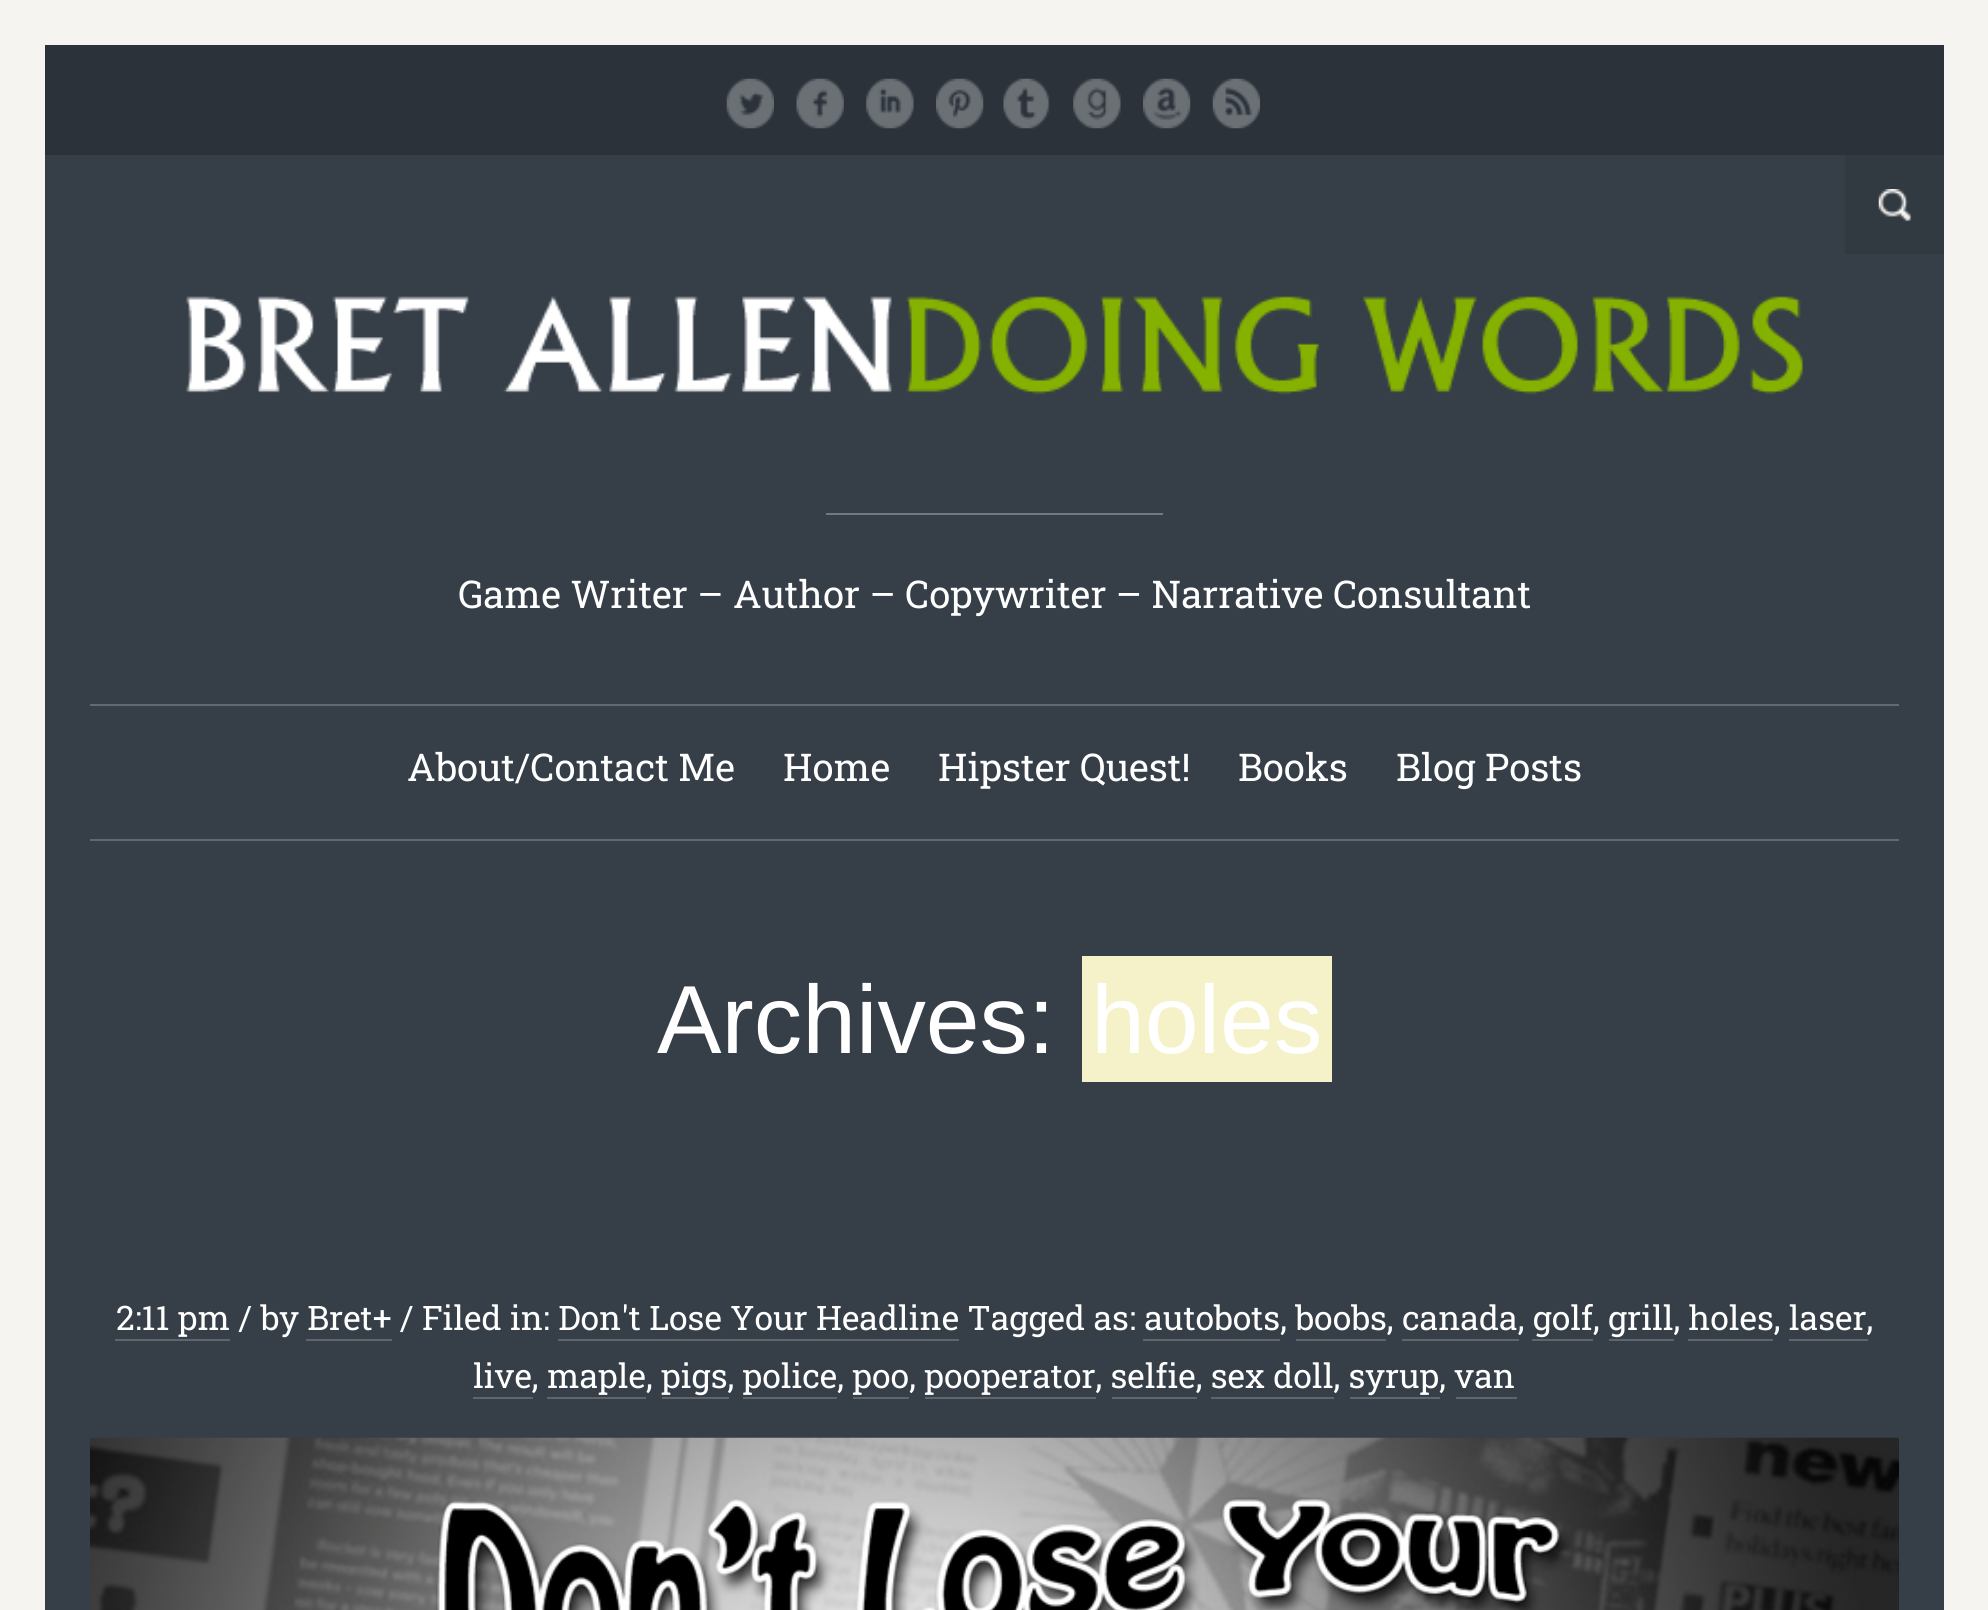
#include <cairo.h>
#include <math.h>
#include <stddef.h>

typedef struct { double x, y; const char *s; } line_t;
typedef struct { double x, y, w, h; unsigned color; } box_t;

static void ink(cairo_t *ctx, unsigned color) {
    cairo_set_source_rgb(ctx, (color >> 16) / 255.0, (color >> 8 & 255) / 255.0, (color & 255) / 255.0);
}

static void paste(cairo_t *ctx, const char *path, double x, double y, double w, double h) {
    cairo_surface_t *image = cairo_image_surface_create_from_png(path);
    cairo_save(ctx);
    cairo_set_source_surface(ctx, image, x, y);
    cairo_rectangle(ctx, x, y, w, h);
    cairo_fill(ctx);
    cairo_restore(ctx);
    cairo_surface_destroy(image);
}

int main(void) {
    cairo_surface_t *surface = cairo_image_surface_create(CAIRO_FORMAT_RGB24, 1988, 1610);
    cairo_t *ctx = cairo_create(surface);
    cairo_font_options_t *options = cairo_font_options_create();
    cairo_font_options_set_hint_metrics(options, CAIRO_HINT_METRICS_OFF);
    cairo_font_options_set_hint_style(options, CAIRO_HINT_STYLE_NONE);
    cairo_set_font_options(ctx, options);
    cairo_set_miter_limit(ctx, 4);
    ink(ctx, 0x363F48);
    cairo_paint(ctx);
    cairo_rectangle(ctx, 22.5, 22.5, 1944, 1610);
    ink(ctx, 0xF5F4F0);
    cairo_set_line_width(ctx, 45);
    cairo_stroke(ctx);
    ink(ctx, 0x2B323A);
    cairo_rectangle(ctx, 45, 45, 1899, 110);
    cairo_fill(ctx);
    paste(ctx, "media/1.png", 726, 78, 48, 51);
    paste(ctx, "media/2.png", 796, 78, 48, 51);
    paste(ctx, "media/3.png", 866, 78, 48, 51);
    paste(ctx, "media/4.png", 936, 78, 48, 51);
    paste(ctx, "media/5.png", 1003, 78, 47, 51);
    paste(ctx, "media/6.png", 1073, 78, 48, 51);
    paste(ctx, "media/7.png", 1143, 78, 48, 51);
    paste(ctx, "media/8.png", 1212, 78, 48, 51);
    ink(ctx, 0x313941);
    cairo_rectangle(ctx, 1845, 155, 99, 99);
    cairo_fill(ctx);
    paste(ctx, "media/9.png", 1878, 189, 34, 33);
    paste(ctx, "media/10.png", 186, 296, 1617, 99);
    ink(ctx, 0x72797F);
    cairo_rectangle(ctx, 826, 513, 337, 2);
    cairo_fill(ctx);
    cairo_select_font_face(ctx, "Roboto Slab", CAIRO_FONT_SLANT_NORMAL, CAIRO_FONT_WEIGHT_NORMAL);
    cairo_set_font_size(ctx, 38.25);
    ink(ctx, 0xFFFFFF);
    cairo_move_to(ctx, 458, 608);
    cairo_show_text(ctx, "Game Writer – Author – Copywriter – Narrative Consultant");
    ink(ctx, 0x626970);
    cairo_rectangle(ctx, 90, 704, 1809, 2);
    cairo_fill(ctx);
    cairo_rectangle(ctx, 90, 839, 1809, 2);
    cairo_fill(ctx);
    ink(ctx, 0xFFFFFF);
    {
        static const line_t items[] = {
            {407, 781, "About/Contact Me"},
            {783, 781, "Home"},
            {938, 781, "Hipster Quest!"},
            {1238, 781, "Books"},
            {1396, 781, "Blog Posts"},
        };
        for (size_t i = 0; i < sizeof items / sizeof *items; i++) {
            cairo_move_to(ctx, items[i].x, items[i].y);
            cairo_show_text(ctx, items[i].s);
        }
    }
    cairo_select_font_face(ctx, "Liberation Sans", CAIRO_FONT_SLANT_NORMAL, CAIRO_FONT_WEIGHT_NORMAL);
    cairo_set_font_size(ctx, 96.75);
    cairo_move_to(ctx, 657, 1053);
    cairo_show_text(ctx, "Archives:");
    ink(ctx, 0xF5F2C9);
    cairo_rectangle(ctx, 1082, 956, 250, 126);
    cairo_fill(ctx);
    ink(ctx, 0xFFFFFF);
    cairo_move_to(ctx, 1091, 1053);
    cairo_show_text(ctx, "holes");
    cairo_select_font_face(ctx, "Roboto Slab", CAIRO_FONT_SLANT_NORMAL, CAIRO_FONT_WEIGHT_NORMAL);
    cairo_set_font_size(ctx, 33.75);
    cairo_move_to(ctx, 116, 1330);
    cairo_show_text(ctx, "2:11 pm / by Bret+ / Filed in: Don't Lose Your Headline Tagged as: autobots, boobs, canada, golf, grill, holes, laser,");
    {
        static const box_t items[] = {
            {115, 1339, 115, 2, 0x5E656D},
            {306, 1339, 86, 2, 0x5E656D},
            {558, 1339, 401, 2, 0x5E656D},
        };
        for (size_t i = 0; i < sizeof items / sizeof *items; i++) {
            ink(ctx, items[i].color);
            cairo_rectangle(ctx, items[i].x, items[i].y, items[i].w, items[i].h);
            cairo_fill(ctx);
        }
    }
    ink(ctx, 0xFFFFFF);
    cairo_move_to(ctx, 473, 1388);
    cairo_show_text(ctx, "live, maple, pigs, police, poo, pooperator, selfie, sex doll, syrup, van");
    {
        static const box_t items[] = {
            {1143, 1339, 137, 2, 0x5E656D},
            {1296, 1339, 90, 2, 0x5E656D},
            {1402, 1339, 117, 2, 0x5E656D},
            {1532, 1339, 61, 2, 0x5E656D},
            {1609, 1339, 65, 2, 0x5E656D},
            {1688, 1339, 85, 2, 0x5E656D},
            {1789, 1339, 79, 2, 0x5E656D},
            {473, 1397, 60, 2, 0x5E656D},
            {547, 1397, 99, 2, 0x5E656D},
            {662, 1397, 67, 2, 0x5E656D},
            {743, 1397, 94, 2, 0x5E656D},
            {853, 1397, 56, 2, 0x5E656D},
            {925, 1397, 171, 2, 0x5E656D},
            {1112, 1397, 85, 2, 0x5E656D},
            {1211, 1397, 123, 2, 0x5E656D},
            {1350, 1397, 90, 2, 0x5E656D},
            {1456, 1397, 61, 2, 0x5E656D},
        };
        for (size_t i = 0; i < sizeof items / sizeof *items; i++) {
            ink(ctx, items[i].color);
            cairo_rectangle(ctx, items[i].x, items[i].y, items[i].w, items[i].h);
            cairo_fill(ctx);
        }
    }
    paste(ctx, "media/11.png", 90, 1437, 1809, 173);
    cairo_surface_write_to_png(surface, "image.png");
    cairo_font_options_destroy(options);
    cairo_destroy(ctx);
    cairo_surface_destroy(surface);
    return 0;
}
